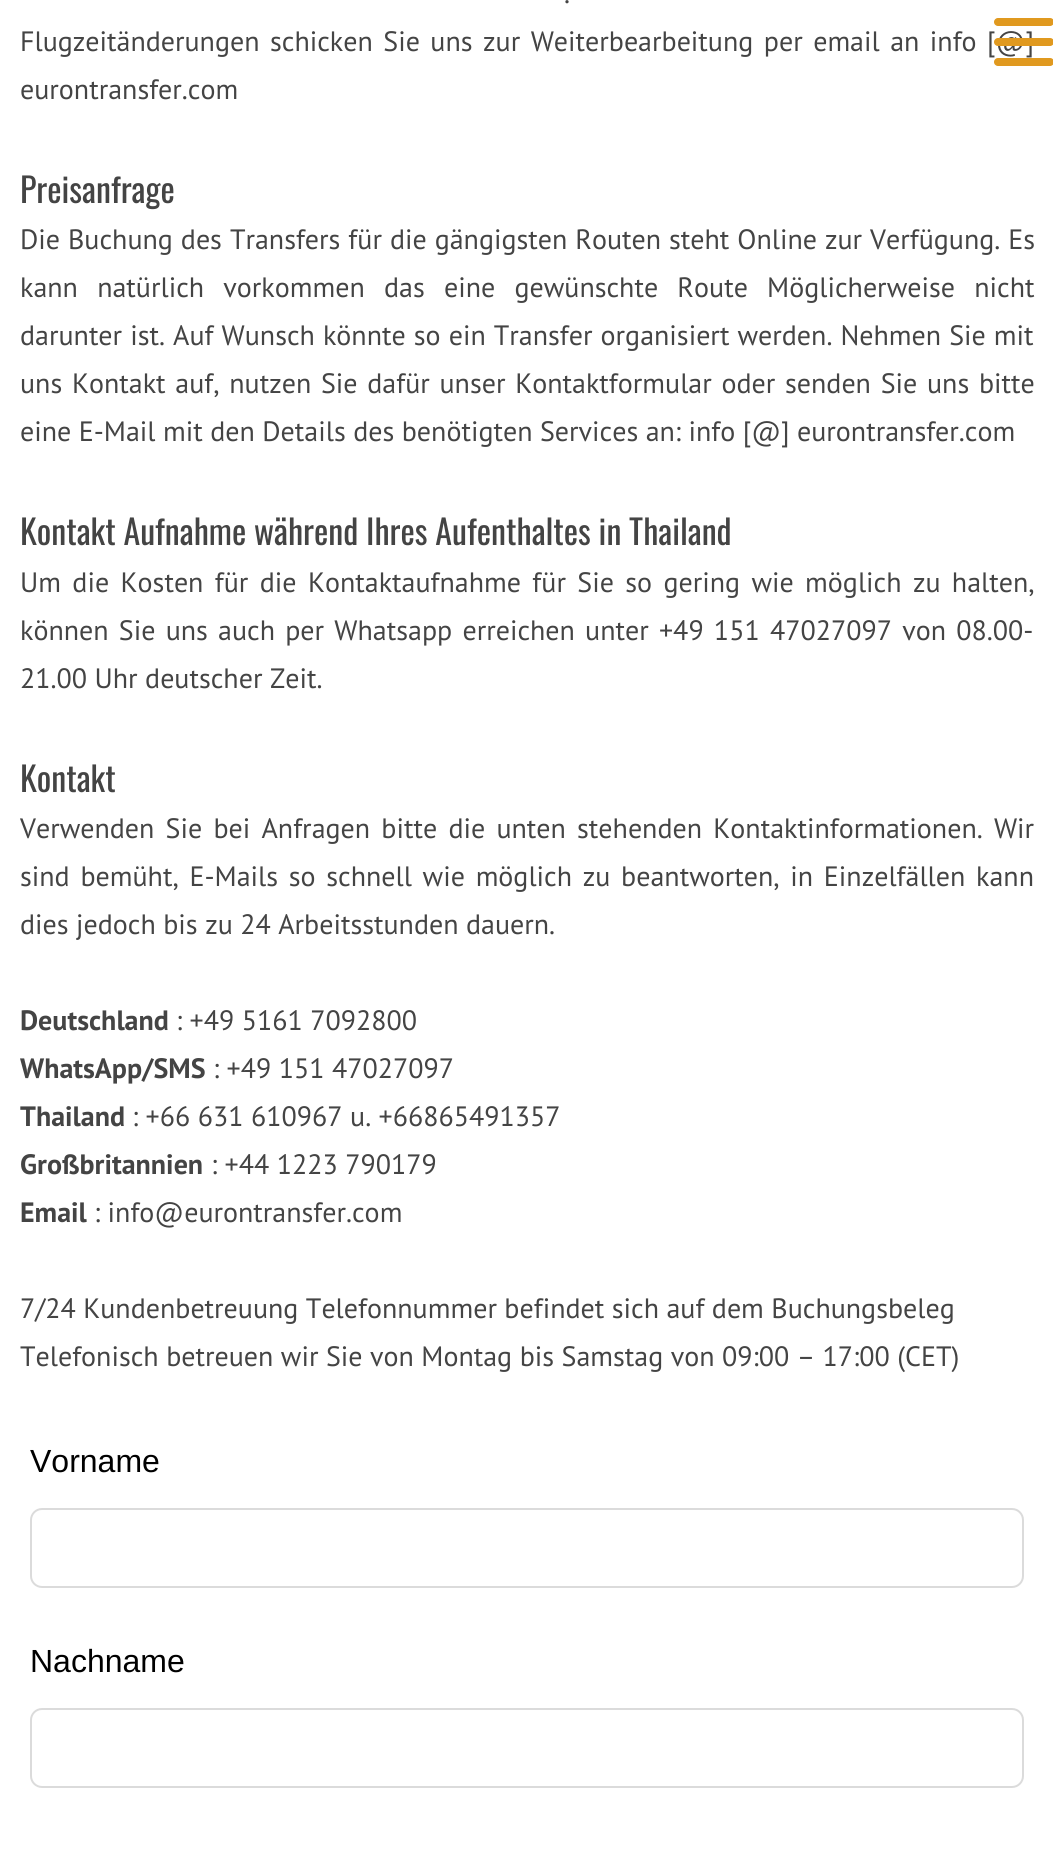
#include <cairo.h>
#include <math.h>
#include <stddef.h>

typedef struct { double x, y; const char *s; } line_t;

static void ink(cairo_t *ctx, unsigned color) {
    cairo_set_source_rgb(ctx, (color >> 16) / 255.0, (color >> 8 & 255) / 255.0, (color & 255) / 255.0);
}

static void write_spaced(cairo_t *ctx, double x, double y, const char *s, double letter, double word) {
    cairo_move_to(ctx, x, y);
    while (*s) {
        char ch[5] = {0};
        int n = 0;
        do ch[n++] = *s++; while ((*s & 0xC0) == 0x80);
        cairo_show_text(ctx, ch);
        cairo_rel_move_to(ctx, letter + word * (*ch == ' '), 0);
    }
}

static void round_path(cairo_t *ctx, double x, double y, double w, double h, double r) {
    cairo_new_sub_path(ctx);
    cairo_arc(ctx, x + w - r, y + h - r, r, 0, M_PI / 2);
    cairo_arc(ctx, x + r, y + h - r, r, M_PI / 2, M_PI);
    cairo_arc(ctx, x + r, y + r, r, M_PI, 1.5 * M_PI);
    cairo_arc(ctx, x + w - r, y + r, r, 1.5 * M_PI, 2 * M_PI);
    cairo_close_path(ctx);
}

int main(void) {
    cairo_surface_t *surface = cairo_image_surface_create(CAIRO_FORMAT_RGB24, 1053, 1865);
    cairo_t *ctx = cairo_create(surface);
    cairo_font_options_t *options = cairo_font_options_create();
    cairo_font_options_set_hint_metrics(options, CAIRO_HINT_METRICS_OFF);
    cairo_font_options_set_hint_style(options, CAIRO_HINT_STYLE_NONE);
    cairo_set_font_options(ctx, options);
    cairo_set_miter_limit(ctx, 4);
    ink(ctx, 0xFFFFFF);
    cairo_paint(ctx);
    cairo_select_font_face(ctx, "PT Sans", CAIRO_FONT_SLANT_NORMAL, CAIRO_FONT_WEIGHT_NORMAL);
    cairo_set_font_size(ctx, 28);
    ink(ctx, 0x444444);
    cairo_move_to(ctx, 564, 3);
    cairo_show_text(ctx, ".");
    write_spaced(ctx, 20, 51, "Flugzeitänderungen schicken Sie uns zur Weiterbearbeitung per email an info [@]", 0, 3);
    cairo_move_to(ctx, 20, 99);
    cairo_show_text(ctx, "eurontransfer.com");
    cairo_select_font_face(ctx, "Oswald", CAIRO_FONT_SLANT_NORMAL, CAIRO_FONT_WEIGHT_NORMAL);
    cairo_set_font_size(ctx, 34);
    cairo_move_to(ctx, 20, 203);
    cairo_show_text(ctx, "Preisanfrage");
    cairo_select_font_face(ctx, "PT Sans", CAIRO_FONT_SLANT_NORMAL, CAIRO_FONT_WEIGHT_NORMAL);
    cairo_set_font_size(ctx, 28);
    write_spaced(ctx, 20, 249, "Die Buchung des Transfers für die gängigsten Routen steht Online zur Verfügung. Es", 0, 0.5);
    write_spaced(ctx, 20, 297, "kann natürlich vorkommen das eine gewünschte Route Möglicherweise nicht", 0, 11.75);
    write_spaced(ctx, 20, 345, "darunter ist. Auf Wunsch könnte so ein Transfer organisiert werden. Nehmen Sie mit", 0, 0.6);
    write_spaced(ctx, 20, 393, "uns Kontakt auf, nutzen Sie dafür unser Kontaktformular oder senden Sie uns bitte", 0, 2.25);
    cairo_move_to(ctx, 20, 441);
    cairo_show_text(ctx, "eine E-Mail mit den Details des benötigten Services an: info [@] eurontransfer.com");
    cairo_select_font_face(ctx, "Oswald", CAIRO_FONT_SLANT_NORMAL, CAIRO_FONT_WEIGHT_NORMAL);
    cairo_set_font_size(ctx, 34);
    cairo_move_to(ctx, 20, 545);
    cairo_show_text(ctx, "Kontakt Aufnahme während Ihres Aufenthaltes in Thailand");
    cairo_select_font_face(ctx, "PT Sans", CAIRO_FONT_SLANT_NORMAL, CAIRO_FONT_WEIGHT_NORMAL);
    cairo_set_font_size(ctx, 28);
    write_spaced(ctx, 20, 592, "Um die Kosten für die Kontaktaufnahme für Sie so gering wie möglich zu halten,", 0, 3.9);
    write_spaced(ctx, 20, 640, "können Sie uns auch per Whatsapp erreichen unter +49 151 47027097 von 08.00-", 0, 2.75);
    cairo_move_to(ctx, 20, 688);
    cairo_show_text(ctx, "21.00 Uhr deutscher Zeit.");
    cairo_select_font_face(ctx, "Oswald", CAIRO_FONT_SLANT_NORMAL, CAIRO_FONT_WEIGHT_NORMAL);
    cairo_set_font_size(ctx, 34);
    cairo_move_to(ctx, 20, 792);
    cairo_show_text(ctx, "Kontakt");
    cairo_select_font_face(ctx, "PT Sans", CAIRO_FONT_SLANT_NORMAL, CAIRO_FONT_WEIGHT_NORMAL);
    cairo_set_font_size(ctx, 28);
    write_spaced(ctx, 20, 838, "Verwenden Sie bei Anfragen bitte die unten stehenden Kontaktinformationen. Wir", 0, 3.75);
    write_spaced(ctx, 20, 886, "sind bemüht, E-Mails so schnell wie möglich zu beantworten, in Einzelfällen kann", 0, 3.25);
    cairo_move_to(ctx, 20, 934);
    cairo_show_text(ctx, "dies jedoch bis zu 24 Arbeitsstunden dauern.");
    cairo_select_font_face(ctx, "PT Sans", CAIRO_FONT_SLANT_NORMAL, CAIRO_FONT_WEIGHT_BOLD);
    cairo_move_to(ctx, 20, 1030);
    cairo_show_text(ctx, "Deutschland");
    cairo_select_font_face(ctx, "PT Sans", CAIRO_FONT_SLANT_NORMAL, CAIRO_FONT_WEIGHT_NORMAL);
    cairo_move_to(ctx, 176, 1030);
    cairo_show_text(ctx, ": +49 5161 7092800");
    cairo_select_font_face(ctx, "PT Sans", CAIRO_FONT_SLANT_NORMAL, CAIRO_FONT_WEIGHT_BOLD);
    cairo_move_to(ctx, 20, 1078);
    cairo_show_text(ctx, "WhatsApp/SMS");
    cairo_select_font_face(ctx, "PT Sans", CAIRO_FONT_SLANT_NORMAL, CAIRO_FONT_WEIGHT_NORMAL);
    cairo_move_to(ctx, 213, 1078);
    cairo_show_text(ctx, ": +49 151 47027097");
    cairo_select_font_face(ctx, "PT Sans", CAIRO_FONT_SLANT_NORMAL, CAIRO_FONT_WEIGHT_BOLD);
    cairo_move_to(ctx, 20, 1126);
    cairo_show_text(ctx, "Thailand");
    cairo_select_font_face(ctx, "PT Sans", CAIRO_FONT_SLANT_NORMAL, CAIRO_FONT_WEIGHT_NORMAL);
    cairo_move_to(ctx, 132, 1126);
    cairo_show_text(ctx, ": +66 631 610967 u. +66865491357");
    cairo_select_font_face(ctx, "PT Sans", CAIRO_FONT_SLANT_NORMAL, CAIRO_FONT_WEIGHT_BOLD);
    cairo_move_to(ctx, 20, 1174);
    cairo_show_text(ctx, "Großbritannien");
    cairo_select_font_face(ctx, "PT Sans", CAIRO_FONT_SLANT_NORMAL, CAIRO_FONT_WEIGHT_NORMAL);
    cairo_move_to(ctx, 211, 1174);
    cairo_show_text(ctx, ": +44 1223 790179");
    cairo_select_font_face(ctx, "PT Sans", CAIRO_FONT_SLANT_NORMAL, CAIRO_FONT_WEIGHT_BOLD);
    cairo_move_to(ctx, 20, 1222);
    cairo_show_text(ctx, "Email");
    cairo_select_font_face(ctx, "PT Sans", CAIRO_FONT_SLANT_NORMAL, CAIRO_FONT_WEIGHT_NORMAL);
    {
        static const line_t items[] = {
            {94, 1222, ": info@eurontransfer.com"},
            {20, 1318, "7/24 Kundenbetreuung Telefonnummer befindet sich auf dem Buchungsbeleg"},
            {20, 1366, "Telefonisch betreuen wir Sie von Montag bis Samstag von 09:00 – 17:00 (CET)"},
        };
        for (size_t i = 0; i < sizeof items / sizeof *items; i++) {
            cairo_move_to(ctx, items[i].x, items[i].y);
            cairo_show_text(ctx, items[i].s);
        }
    }
    cairo_select_font_face(ctx, "Liberation Sans", CAIRO_FONT_SLANT_NORMAL, CAIRO_FONT_WEIGHT_NORMAL);
    cairo_set_font_size(ctx, 32);
    ink(ctx, 0x000000);
    cairo_move_to(ctx, 30, 1472);
    cairo_show_text(ctx, "Vorname");
    round_path(ctx, 31, 1509, 992, 78, 11);
    ink(ctx, 0xDBDBDB);
    cairo_stroke(ctx);
    ink(ctx, 0x000000);
    cairo_move_to(ctx, 30, 1672);
    cairo_show_text(ctx, "Nachname");
    round_path(ctx, 31, 1709, 992, 78, 11);
    ink(ctx, 0xDBDBDB);
    cairo_stroke(ctx);
    ink(ctx, 0xE0991F);
    round_path(ctx, 994, 18, 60, 8, 4);
    cairo_fill(ctx);
    round_path(ctx, 994, 38, 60, 8, 4);
    cairo_fill(ctx);
    round_path(ctx, 994, 58, 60, 8, 4);
    cairo_fill(ctx);
    cairo_surface_write_to_png(surface, "image.png");
    cairo_font_options_destroy(options);
    cairo_destroy(ctx);
    cairo_surface_destroy(surface);
    return 0;
}
